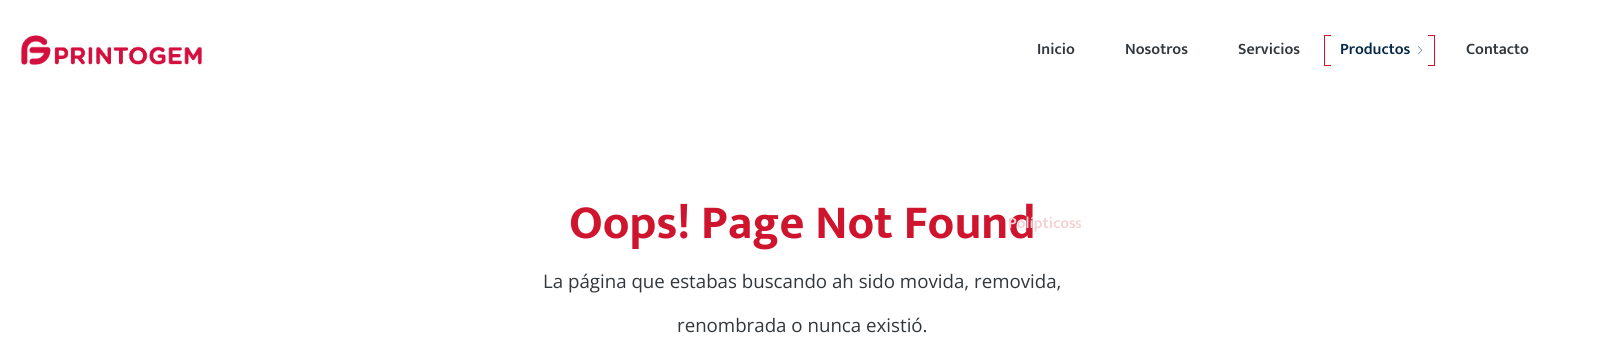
#include <cairo.h>
#include <math.h>
#include <stddef.h>

typedef struct { double x, y; const char *s; } line_t;
typedef struct { double x, y, w, h; unsigned color; } box_t;

static void ink(cairo_t *ctx, unsigned color) {
    cairo_set_source_rgb(ctx, (color >> 16) / 255.0, (color >> 8 & 255) / 255.0, (color & 255) / 255.0);
}

static void paste(cairo_t *ctx, const char *path, double x, double y, double w, double h) {
    cairo_surface_t *image = cairo_image_surface_create_from_png(path);
    cairo_save(ctx);
    cairo_set_source_surface(ctx, image, x, y);
    cairo_rectangle(ctx, x, y, w, h);
    cairo_fill(ctx);
    cairo_restore(ctx);
    cairo_surface_destroy(image);
}

int main(void) {
    cairo_surface_t *surface = cairo_image_surface_create(CAIRO_FORMAT_RGB24, 1604, 354);
    cairo_t *ctx = cairo_create(surface);
    cairo_font_options_t *options = cairo_font_options_create();
    cairo_font_options_set_hint_metrics(options, CAIRO_HINT_METRICS_OFF);
    cairo_font_options_set_hint_style(options, CAIRO_HINT_STYLE_NONE);
    cairo_set_font_options(ctx, options);
    cairo_set_miter_limit(ctx, 4);
    ink(ctx, 0xFFFFFF);
    cairo_paint(ctx);
    paste(ctx, "media/1.png", 21, 35, 181, 30);
    {
        static const box_t items[] = {
            {1434, 35, 1, 31, 0xCF152D},
            {1324, 35, 1, 31, 0xCF152D},
            {1324, 35, 7, 1, 0xCF152D},
            {1428, 35, 7, 1, 0xCF152D},
        };
        for (size_t i = 0; i < sizeof items / sizeof *items; i++) {
            ink(ctx, items[i].color);
            cairo_rectangle(ctx, items[i].x, items[i].y, items[i].w, items[i].h);
            cairo_fill(ctx);
        }
    }
    cairo_select_font_face(ctx, "Mukta SemiBold", CAIRO_FONT_SLANT_NORMAL, CAIRO_FONT_WEIGHT_NORMAL);
    cairo_set_font_size(ctx, 16);
    ink(ctx, 0x052847);
    cairo_move_to(ctx, 1340, 54);
    cairo_show_text(ctx, "Productos");
    ink(ctx, 0xCF152D);
    cairo_rectangle(ctx, 1324, 65, 7, 1);
    cairo_fill(ctx);
    cairo_rectangle(ctx, 1428, 65, 7, 1);
    cairo_fill(ctx);
    paste(ctx, "media/2.png", 1418, 46, 4, 9);
    cairo_select_font_face(ctx, "Mukta", CAIRO_FONT_SLANT_NORMAL, CAIRO_FONT_WEIGHT_BOLD);
    cairo_set_font_size(ctx, 48);
    cairo_move_to(ctx, 569, 238);
    cairo_show_text(ctx, "Oops! Page Not Found");
    cairo_select_font_face(ctx, "Mukta SemiBold", CAIRO_FONT_SLANT_NORMAL, CAIRO_FONT_WEIGHT_NORMAL);
    cairo_set_font_size(ctx, 16);
    ink(ctx, 0xF5CFD4);
    cairo_move_to(ctx, 1008, 228);
    cairo_show_text(ctx, "Polípticos");
    ink(ctx, 0xF6D5D9);
    cairo_move_to(ctx, 1075, 228);
    cairo_show_text(ctx, "s");
    ink(ctx, 0x32373B);
    {
        static const line_t items[] = {
            {1037, 54, "Inicio"},
            {1125, 54, "Nosotros"},
            {1238, 54, "Servicios"},
            {1466, 54, "Contacto"},
        };
        for (size_t i = 0; i < sizeof items / sizeof *items; i++) {
            cairo_move_to(ctx, items[i].x, items[i].y);
            cairo_show_text(ctx, items[i].s);
        }
    }
    cairo_select_font_face(ctx, "Open Sans", CAIRO_FONT_SLANT_NORMAL, CAIRO_FONT_WEIGHT_NORMAL);
    cairo_set_font_size(ctx, 18.7);
    cairo_move_to(ctx, 543, 288);
    cairo_show_text(ctx, "La página que estabas buscando ah sido movida, removida,");
    cairo_move_to(ctx, 677, 332);
    cairo_show_text(ctx, "renombrada o nunca existió.");
    cairo_surface_write_to_png(surface, "image.png");
    cairo_font_options_destroy(options);
    cairo_destroy(ctx);
    cairo_surface_destroy(surface);
    return 0;
}
